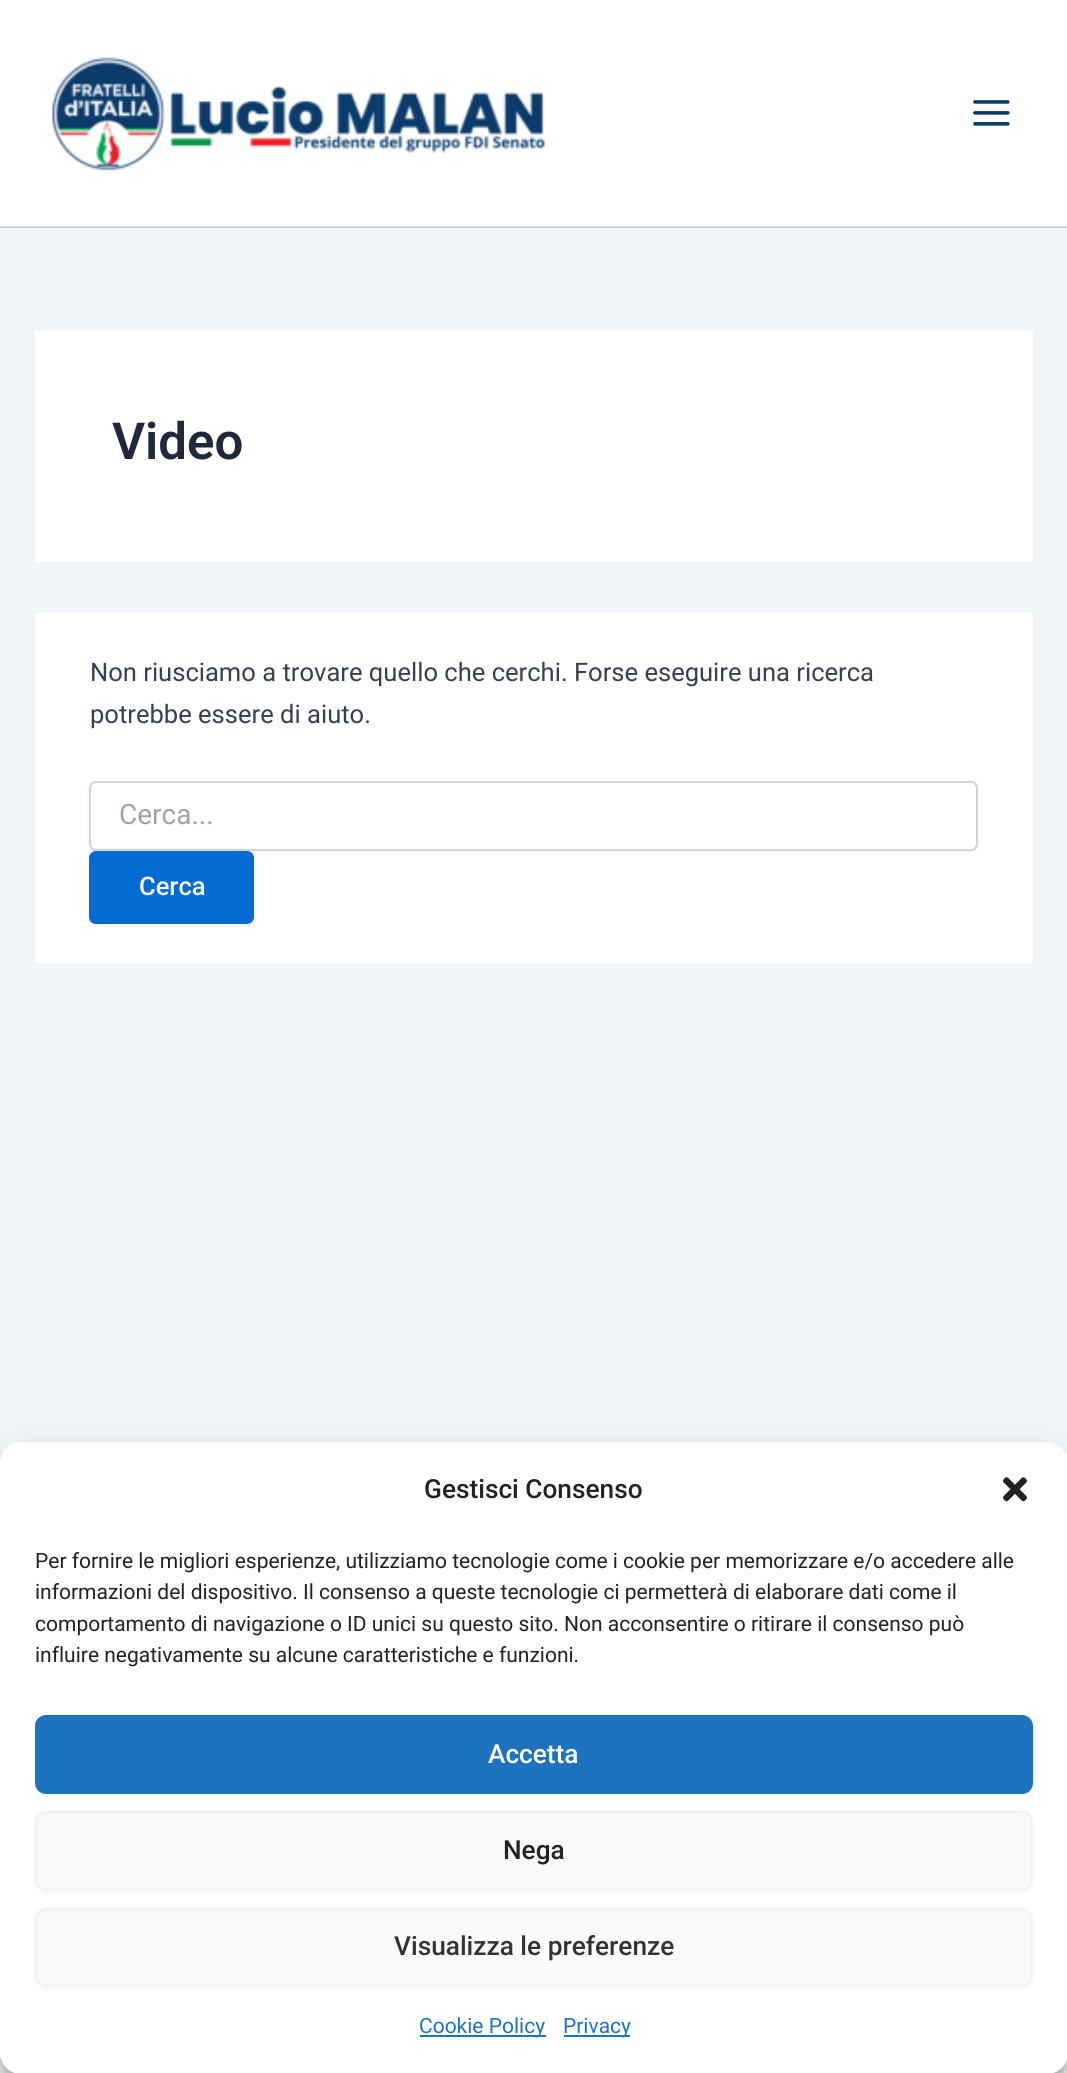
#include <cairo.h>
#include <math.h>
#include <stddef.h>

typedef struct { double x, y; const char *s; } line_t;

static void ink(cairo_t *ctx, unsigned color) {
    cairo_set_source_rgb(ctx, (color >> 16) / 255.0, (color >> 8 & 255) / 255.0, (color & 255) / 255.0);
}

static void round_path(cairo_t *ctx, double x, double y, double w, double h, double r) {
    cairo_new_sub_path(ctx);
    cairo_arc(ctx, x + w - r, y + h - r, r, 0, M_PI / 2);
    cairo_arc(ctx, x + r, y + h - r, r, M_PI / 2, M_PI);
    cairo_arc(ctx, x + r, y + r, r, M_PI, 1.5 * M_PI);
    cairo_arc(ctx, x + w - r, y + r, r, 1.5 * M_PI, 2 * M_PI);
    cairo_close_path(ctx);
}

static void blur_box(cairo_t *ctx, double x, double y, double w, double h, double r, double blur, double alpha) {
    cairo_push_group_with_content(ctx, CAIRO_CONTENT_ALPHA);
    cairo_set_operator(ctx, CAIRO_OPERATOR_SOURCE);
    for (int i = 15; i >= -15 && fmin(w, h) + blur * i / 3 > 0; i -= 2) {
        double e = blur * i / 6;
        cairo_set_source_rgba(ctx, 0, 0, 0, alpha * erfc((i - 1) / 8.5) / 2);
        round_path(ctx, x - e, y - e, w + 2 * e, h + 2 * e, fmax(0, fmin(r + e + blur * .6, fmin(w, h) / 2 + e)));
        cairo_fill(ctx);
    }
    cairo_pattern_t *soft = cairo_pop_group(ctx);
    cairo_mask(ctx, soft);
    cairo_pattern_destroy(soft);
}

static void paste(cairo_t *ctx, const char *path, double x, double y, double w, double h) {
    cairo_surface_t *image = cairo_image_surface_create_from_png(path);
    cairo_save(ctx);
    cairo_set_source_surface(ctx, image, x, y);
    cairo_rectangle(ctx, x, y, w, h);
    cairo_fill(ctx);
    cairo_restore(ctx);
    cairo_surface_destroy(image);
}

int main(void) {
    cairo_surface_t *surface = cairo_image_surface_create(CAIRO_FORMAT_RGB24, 1067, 2073);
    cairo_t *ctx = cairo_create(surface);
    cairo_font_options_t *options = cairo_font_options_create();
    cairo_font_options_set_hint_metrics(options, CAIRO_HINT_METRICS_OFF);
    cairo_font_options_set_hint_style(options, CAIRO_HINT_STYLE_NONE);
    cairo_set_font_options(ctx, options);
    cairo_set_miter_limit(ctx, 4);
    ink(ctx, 0xF0F5FA);
    cairo_paint(ctx);
    ink(ctx, 0xFFFFFF);
    cairo_rectangle(ctx, 0, 0, 1067, 226);
    cairo_fill(ctx);
    ink(ctx, 0xD1D5DB);
    cairo_rectangle(ctx, 0, 226, 1067, 2);
    cairo_fill(ctx);
    paste(ctx, "media/1.png", 52, 57, 494, 114);
    paste(ctx, "media/2.png", 973, 100, 37, 26);
    ink(ctx, 0xFFFFFF);
    cairo_rectangle(ctx, 35, 331, 998, 231);
    cairo_fill(ctx);
    cairo_select_font_face(ctx, "Roboto SemiBold", CAIRO_FONT_SLANT_NORMAL, CAIRO_FONT_WEIGHT_NORMAL);
    cairo_set_font_size(ctx, 51);
    ink(ctx, 0x1E293B);
    cairo_move_to(ctx, 112, 459);
    cairo_show_text(ctx, "Video");
    ink(ctx, 0xFFFFFF);
    cairo_rectangle(ctx, 35, 613, 998, 350);
    cairo_fill(ctx);
    cairo_select_font_face(ctx, "Roboto", CAIRO_FONT_SLANT_NORMAL, CAIRO_FONT_WEIGHT_NORMAL);
    cairo_set_font_size(ctx, 25.55);
    ink(ctx, 0x334155);
    cairo_move_to(ctx, 90, 681);
    cairo_show_text(ctx, "Non riusciamo a trovare quello che cerchi. Forse eseguire una ricerca");
    cairo_move_to(ctx, 90, 723);
    cairo_show_text(ctx, "potrebbe essere di aiuto.");
    ink(ctx, 0x000000);
    blur_box(ctx, 89, 782, 889, 70, 7, 2, 0.05);
    ink(ctx, 0xFFFFFF);
    round_path(ctx, 90, 782, 887, 68, 6);
    cairo_fill_preserve(ctx);
    ink(ctx, 0xD1D5DB);
    cairo_stroke(ctx);
    cairo_set_font_size(ctx, 28);
    ink(ctx, 0x9CA3AF);
    cairo_move_to(ctx, 119, 824);
    cairo_show_text(ctx, "Cerca...");
    ink(ctx, 0x000000);
    blur_box(ctx, 89, 852, 165, 74, 7, 2, 0.05);
    ink(ctx, 0x046BD2);
    round_path(ctx, 89, 851, 165, 73, 7);
    cairo_fill(ctx);
    cairo_select_font_face(ctx, "Roboto Medium", CAIRO_FONT_SLANT_NORMAL, CAIRO_FONT_WEIGHT_NORMAL);
    cairo_set_font_size(ctx, 25.55);
    ink(ctx, 0xFFFFFF);
    cairo_move_to(ctx, 139, 895);
    cairo_show_text(ctx, "Cerca");
    cairo_rectangle(ctx, 0, 2053, 1067, 20);
    cairo_fill(ctx);
    ink(ctx, 0x000000);
    blur_box(ctx, 0, 1453, 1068, 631, 21, 5, 0.23);
    blur_box(ctx, 0, 1460, 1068, 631, 21, 17.5, 0.19);
    ink(ctx, 0xFFFFFF);
    round_path(ctx, 0, 1442, 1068, 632, 21);
    cairo_fill(ctx);
    cairo_set_font_size(ctx, 26.25);
    ink(ctx, 0x222222);
    cairo_move_to(ctx, 424, 1498);
    cairo_show_text(ctx, "Gestisci Consenso");
    paste(ctx, "media/3.png", 1003, 1477, 24, 25);
    cairo_select_font_face(ctx, "Roboto", CAIRO_FONT_SLANT_NORMAL, CAIRO_FONT_WEIGHT_NORMAL);
    cairo_set_font_size(ctx, 21);
    {
        static const line_t items[] = {
            {35, 1568, "Per fornire le migliori esperienze, utilizziamo tecnologie come i cookie per memorizzare e/o accedere alle"},
            {35, 1599, "informazioni del dispositivo. Il consenso a queste tecnologie ci permetterà di elaborare dati come il"},
            {35, 1631, "comportamento di navigazione o ID unici su questo sito. Non acconsentire o ritirare il consenso può"},
            {35, 1662, "influire negativamente su alcune caratteristiche e funzioni."},
        };
        for (size_t i = 0; i < sizeof items / sizeof *items; i++) {
            cairo_move_to(ctx, items[i].x, items[i].y);
            cairo_show_text(ctx, items[i].s);
        }
    }
    ink(ctx, 0x000000);
    blur_box(ctx, 35, 1717, 998, 79, 11, 2, 0.05);
    ink(ctx, 0x1E73BE);
    round_path(ctx, 36, 1716, 996, 77, 10);
    cairo_fill_preserve(ctx);
    cairo_stroke(ctx);
    cairo_select_font_face(ctx, "Roboto Medium", CAIRO_FONT_SLANT_NORMAL, CAIRO_FONT_WEIGHT_NORMAL);
    cairo_set_font_size(ctx, 26.25);
    ink(ctx, 0xFFFFFF);
    cairo_move_to(ctx, 488, 1763);
    cairo_show_text(ctx, "Accetta");
    ink(ctx, 0x000000);
    blur_box(ctx, 35, 1813, 998, 79, 11, 2, 0.05);
    ink(ctx, 0xF9F9F9);
    round_path(ctx, 36, 1812, 996, 77, 10);
    cairo_fill_preserve(ctx);
    ink(ctx, 0xF2F2F2);
    cairo_stroke(ctx);
    ink(ctx, 0x222222);
    cairo_move_to(ctx, 503, 1859);
    cairo_show_text(ctx, "Nega");
    ink(ctx, 0x000000);
    blur_box(ctx, 35, 1909, 998, 79, 11, 2, 0.05);
    ink(ctx, 0xF9F9F9);
    round_path(ctx, 36, 1909, 996, 76, 10);
    cairo_fill_preserve(ctx);
    ink(ctx, 0xF2F2F2);
    cairo_stroke(ctx);
    ink(ctx, 0x333333);
    cairo_move_to(ctx, 394, 1955);
    cairo_show_text(ctx, "Visualizza le preferenze");
    ink(ctx, 0x1E73BE);
    cairo_rectangle(ctx, 420, 2035, 126, 2);
    cairo_fill(ctx);
    cairo_select_font_face(ctx, "Roboto", CAIRO_FONT_SLANT_NORMAL, CAIRO_FONT_WEIGHT_NORMAL);
    cairo_set_font_size(ctx, 21);
    cairo_move_to(ctx, 419, 2033);
    cairo_show_text(ctx, "Cookie Policy");
    cairo_rectangle(ctx, 564, 2035, 66, 2);
    cairo_fill(ctx);
    cairo_move_to(ctx, 563, 2033);
    cairo_show_text(ctx, "Privacy");
    cairo_surface_write_to_png(surface, "image.png");
    cairo_font_options_destroy(options);
    cairo_destroy(ctx);
    cairo_surface_destroy(surface);
    return 0;
}
